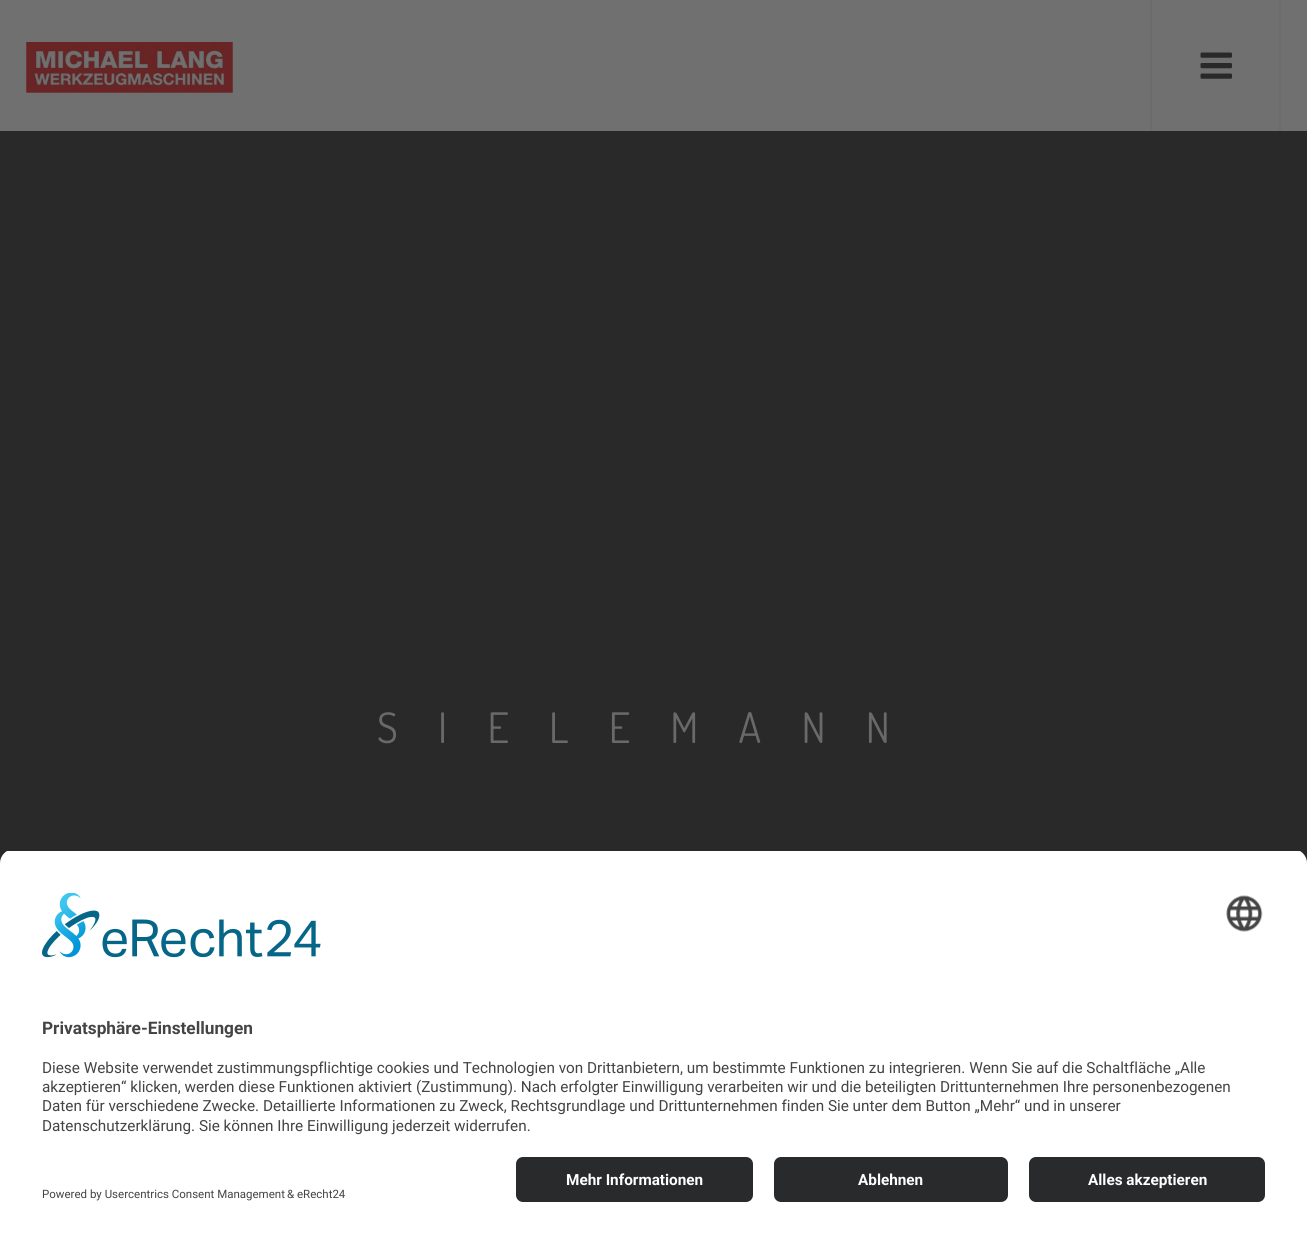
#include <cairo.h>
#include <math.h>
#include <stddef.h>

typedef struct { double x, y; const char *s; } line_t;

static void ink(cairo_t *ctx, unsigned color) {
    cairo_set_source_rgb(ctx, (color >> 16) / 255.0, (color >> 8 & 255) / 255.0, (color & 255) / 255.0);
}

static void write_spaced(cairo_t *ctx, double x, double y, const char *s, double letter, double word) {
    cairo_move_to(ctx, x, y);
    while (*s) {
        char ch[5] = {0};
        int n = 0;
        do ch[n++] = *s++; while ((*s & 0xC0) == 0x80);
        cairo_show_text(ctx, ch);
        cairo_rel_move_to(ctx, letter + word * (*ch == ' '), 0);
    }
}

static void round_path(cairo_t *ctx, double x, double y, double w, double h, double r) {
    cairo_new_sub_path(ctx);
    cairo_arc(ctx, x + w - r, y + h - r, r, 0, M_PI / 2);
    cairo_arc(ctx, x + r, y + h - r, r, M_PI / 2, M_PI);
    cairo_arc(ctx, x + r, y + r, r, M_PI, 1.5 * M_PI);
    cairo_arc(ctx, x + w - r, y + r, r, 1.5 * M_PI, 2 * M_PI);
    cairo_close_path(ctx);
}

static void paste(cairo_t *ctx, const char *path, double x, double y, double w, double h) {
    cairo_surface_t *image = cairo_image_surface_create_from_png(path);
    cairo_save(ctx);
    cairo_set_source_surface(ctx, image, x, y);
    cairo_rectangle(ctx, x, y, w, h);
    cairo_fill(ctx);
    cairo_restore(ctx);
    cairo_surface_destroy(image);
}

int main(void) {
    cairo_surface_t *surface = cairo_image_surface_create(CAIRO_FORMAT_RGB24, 1307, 1244);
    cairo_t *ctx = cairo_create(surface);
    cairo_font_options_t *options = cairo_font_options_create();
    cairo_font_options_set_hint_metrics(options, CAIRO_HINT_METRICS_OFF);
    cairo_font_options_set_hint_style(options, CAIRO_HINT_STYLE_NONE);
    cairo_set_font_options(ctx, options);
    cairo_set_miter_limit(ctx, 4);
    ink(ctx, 0x707070);
    cairo_paint(ctx);
    paste(ctx, "media/1.png", 26, 42, 207, 51);
    ink(ctx, 0x6C6C6C);
    cairo_rectangle(ctx, 1279, 0, 2, 131);
    cairo_fill(ctx);
    cairo_rectangle(ctx, 1150, 0, 2, 131);
    cairo_fill(ctx);
    paste(ctx, "media/2.png", 1200, 52, 32, 27);
    ink(ctx, 0x292929);
    cairo_rectangle(ctx, 0, 131, 1307, 732);
    cairo_fill(ctx);
    cairo_select_font_face(ctx, "Dosis", CAIRO_FONT_SLANT_NORMAL, CAIRO_FONT_WEIGHT_NORMAL);
    cairo_set_font_size(ctx, 42);
    ink(ctx, 0x696969);
    write_spaced(ctx, 377, 743, "SIELEMANN", 40.25, 0);
    cairo_save(ctx);
    cairo_new_path(ctx);
    cairo_move_to(ctx, 14, 849);
    cairo_line_to(ctx, 1293, 849);
    cairo_curve_to(ctx, 1300.5, 849, 1307, 855.5, 1307, 863);
    cairo_line_to(ctx, 1307, 1143);
    cairo_line_to(ctx, 0, 1143);
    cairo_line_to(ctx, 0, 863);
    cairo_curve_to(ctx, 0, 855.5, 6.5, 849, 14, 849);
    cairo_close_path(ctx);
    cairo_clip(ctx);
    ink(ctx, 0xFFFFFF);
    cairo_rectangle(ctx, 0, 851, 1307, 292);
    cairo_fill(ctx);
    cairo_restore(ctx);
    paste(ctx, "media/3.png", 42, 893, 279, 65);
    paste(ctx, "media/4.png", 1226, 895, 37, 37);
    cairo_select_font_face(ctx, "Roboto", CAIRO_FONT_SLANT_NORMAL, CAIRO_FONT_WEIGHT_BOLD);
    cairo_set_font_size(ctx, 17.25);
    ink(ctx, 0x444444);
    cairo_move_to(ctx, 42, 1034);
    cairo_show_text(ctx, "Privatsphäre-Einstellungen");
    cairo_select_font_face(ctx, "Roboto", CAIRO_FONT_SLANT_NORMAL, CAIRO_FONT_WEIGHT_NORMAL);
    cairo_set_font_size(ctx, 15.3);
    {
        static const line_t items[] = {
            {42, 1073, "Diese Website verwendet zustimmungspflichtige cookies und Technologien von Drittanbietern, um bestimmte Funktionen zu integrieren. Wenn Sie auf die Schaltfläche „Alle"},
            {42, 1092, "akzeptieren“ klicken, werden diese Funktionen aktiviert (Zustimmung). Nach erfolgter Einwilligung verarbeiten wir und die beteiligten Drittunternehmen Ihre personenbezogenen"},
            {42, 1111, "Daten für verschiedene Zwecke. Detaillierte Informationen zu Zweck, Rechtsgrundlage und Drittunternehmen finden Sie unter dem Button „Mehr“ und in unserer"},
            {42, 1131, "Datenschutzerklärung. Sie können Ihre Einwilligung jederzeit widerrufen."},
        };
        for (size_t i = 0; i < sizeof items / sizeof *items; i++) {
            cairo_move_to(ctx, items[i].x, items[i].y);
            cairo_show_text(ctx, items[i].s);
        }
    }
    ink(ctx, 0xFFFFFF);
    cairo_rectangle(ctx, 0, 1143, 1307, 101);
    cairo_fill(ctx);
    ink(ctx, 0x292A2B);
    round_path(ctx, 516, 1157, 237, 45, 7);
    cairo_fill(ctx);
    cairo_select_font_face(ctx, "Roboto", CAIRO_FONT_SLANT_NORMAL, CAIRO_FONT_WEIGHT_BOLD);
    ink(ctx, 0xFFFFFF);
    cairo_move_to(ctx, 566, 1185);
    cairo_show_text(ctx, "Mehr Informationen");
    ink(ctx, 0x292A2B);
    round_path(ctx, 774, 1157, 234, 45, 7);
    cairo_fill(ctx);
    ink(ctx, 0xFFFFFF);
    cairo_move_to(ctx, 858, 1185);
    cairo_show_text(ctx, "Ablehnen");
    ink(ctx, 0x292A2B);
    round_path(ctx, 1029, 1157, 236, 45, 7);
    cairo_fill(ctx);
    ink(ctx, 0xFFFFFF);
    cairo_move_to(ctx, 1088, 1185);
    cairo_show_text(ctx, "Alles akzeptieren");
    cairo_select_font_face(ctx, "Roboto", CAIRO_FONT_SLANT_NORMAL, CAIRO_FONT_WEIGHT_NORMAL);
    cairo_set_font_size(ctx, 11.5);
    ink(ctx, 0x444444);
    cairo_move_to(ctx, 42, 1198);
    cairo_show_text(ctx, "Powered by Usercentrics Consent Management");
    cairo_move_to(ctx, 287, 1198);
    cairo_show_text(ctx, "& eRecht24");
    cairo_surface_write_to_png(surface, "image.png");
    cairo_font_options_destroy(options);
    cairo_destroy(ctx);
    cairo_surface_destroy(surface);
    return 0;
}
